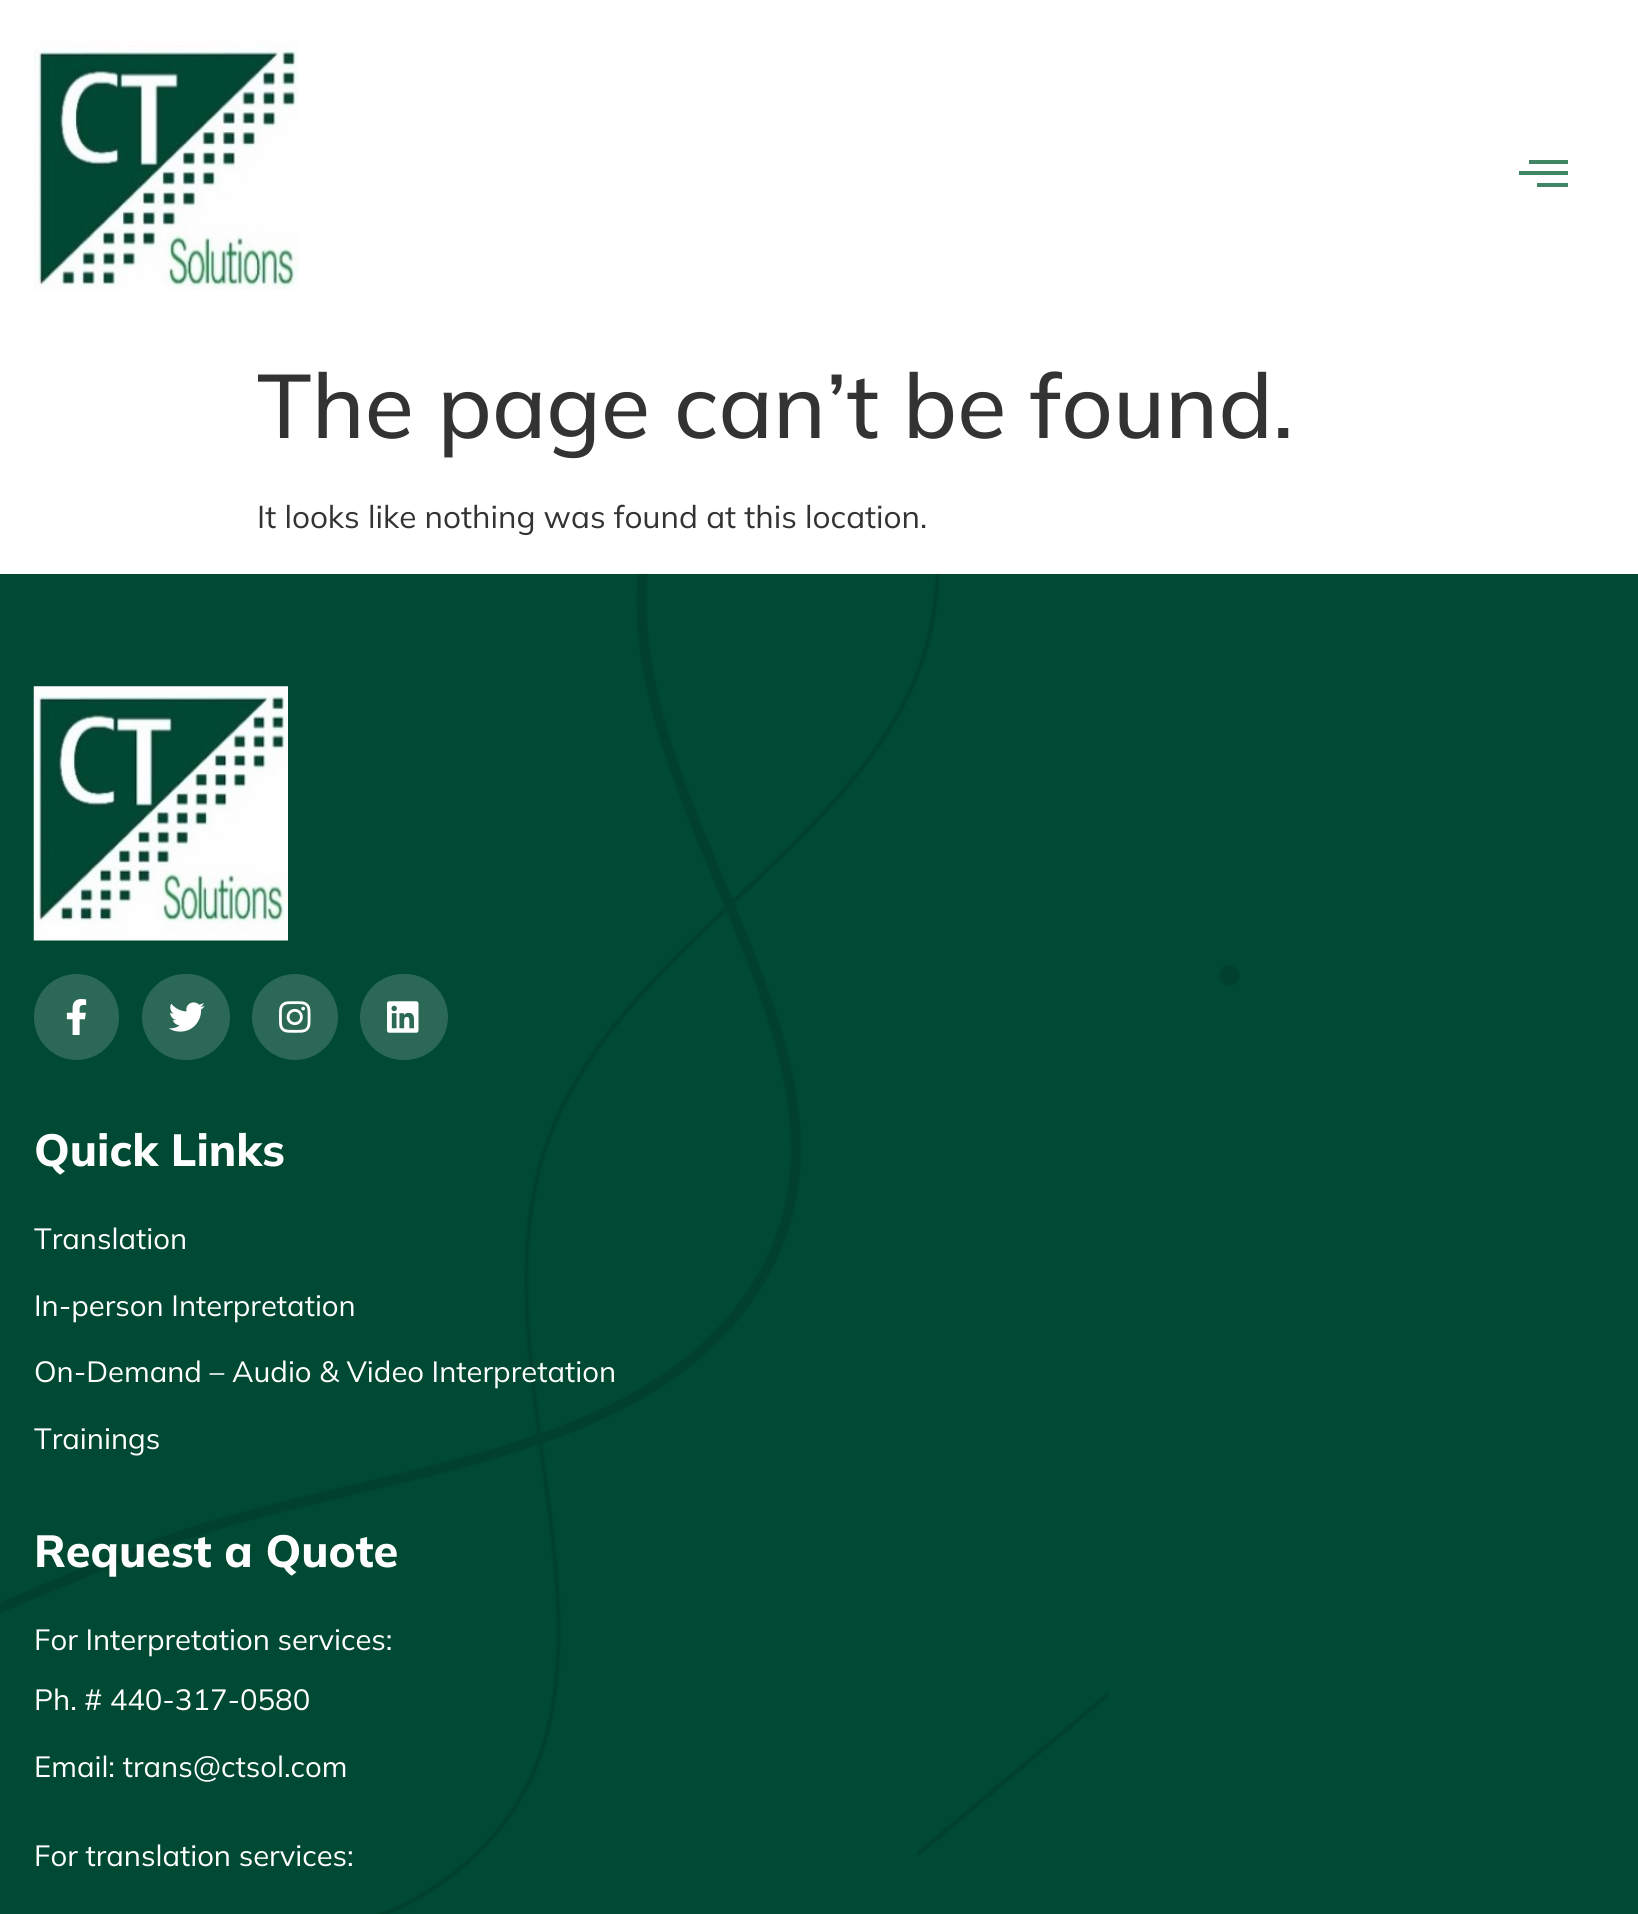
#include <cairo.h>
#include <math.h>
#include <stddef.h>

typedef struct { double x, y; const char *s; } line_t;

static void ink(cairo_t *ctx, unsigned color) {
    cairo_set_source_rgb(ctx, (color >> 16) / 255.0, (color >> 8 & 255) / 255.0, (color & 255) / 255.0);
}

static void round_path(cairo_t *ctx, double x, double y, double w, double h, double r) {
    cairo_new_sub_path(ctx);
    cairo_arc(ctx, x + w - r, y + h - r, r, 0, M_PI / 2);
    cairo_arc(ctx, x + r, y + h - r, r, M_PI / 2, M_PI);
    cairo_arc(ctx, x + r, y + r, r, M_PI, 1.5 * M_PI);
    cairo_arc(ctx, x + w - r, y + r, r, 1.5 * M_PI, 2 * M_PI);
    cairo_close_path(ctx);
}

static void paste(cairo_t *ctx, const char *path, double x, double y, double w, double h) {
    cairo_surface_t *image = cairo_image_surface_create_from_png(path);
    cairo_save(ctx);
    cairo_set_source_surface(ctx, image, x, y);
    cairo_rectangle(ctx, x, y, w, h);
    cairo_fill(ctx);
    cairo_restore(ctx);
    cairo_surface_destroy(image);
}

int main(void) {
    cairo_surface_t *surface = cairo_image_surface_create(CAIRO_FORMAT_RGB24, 1638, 1914);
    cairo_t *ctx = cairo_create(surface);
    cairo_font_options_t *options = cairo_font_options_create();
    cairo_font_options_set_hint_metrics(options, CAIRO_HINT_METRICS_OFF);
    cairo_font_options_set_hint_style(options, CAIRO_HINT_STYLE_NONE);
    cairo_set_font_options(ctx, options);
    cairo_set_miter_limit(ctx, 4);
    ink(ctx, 0xFFFFFF);
    cairo_paint(ctx);
    paste(ctx, "media/1.png", 33, 41, 266, 249);
    ink(ctx, 0x408664);
    cairo_new_path(ctx);
    cairo_move_to(ctx, 1519, 175);
    cairo_line_to(ctx, 1568, 175);
    cairo_line_to(ctx, 1568, 171);
    cairo_line_to(ctx, 1519, 171);
    cairo_close_path(ctx);
    cairo_move_to(ctx, 1537, 187);
    cairo_line_to(ctx, 1568, 187);
    cairo_line_to(ctx, 1568, 183);
    cairo_line_to(ctx, 1537, 183);
    cairo_close_path(ctx);
    cairo_move_to(ctx, 1529, 160);
    cairo_line_to(ctx, 1529, 164);
    cairo_line_to(ctx, 1568, 164);
    cairo_line_to(ctx, 1568, 160);
    cairo_close_path(ctx);
    cairo_fill(ctx);
    cairo_select_font_face(ctx, "Mulish Medium", CAIRO_FONT_SLANT_NORMAL, CAIRO_FONT_WEIGHT_NORMAL);
    cairo_set_font_size(ctx, 90);
    ink(ctx, 0x333333);
    cairo_move_to(ctx, 257, 438);
    cairo_show_text(ctx, "The page can’t be found.");
    cairo_select_font_face(ctx, "Mulish", CAIRO_FONT_SLANT_NORMAL, CAIRO_FONT_WEIGHT_NORMAL);
    cairo_set_font_size(ctx, 31.5);
    cairo_move_to(ctx, 257, 528);
    cairo_show_text(ctx, "It looks like nothing was found at this location.");
    ink(ctx, 0x004932);
    cairo_rectangle(ctx, 0, 574, 1638, 1340);
    cairo_fill(ctx);
    paste(ctx, "media/2.png", 0, 573, 1240, 1341);
    paste(ctx, "media/3.png", 33, 686, 255, 255);
    ink(ctx, 0x2B6855);
    round_path(ctx, 34, 974, 85, 86, 42.5);
    cairo_fill(ctx);
    paste(ctx, "media/4.png", 66, 999, 21, 36);
    round_path(ctx, 142, 974, 88, 86, 43);
    cairo_fill(ctx);
    paste(ctx, "media/5.png", 169, 1002, 36, 30);
    cairo_arc(ctx, 295, 1017, 43, 0, 2 * M_PI);
    cairo_fill(ctx);
    paste(ctx, "media/6.png", 279, 1001, 32, 32);
    round_path(ctx, 360, 974, 88, 86, 43);
    cairo_fill(ctx);
    paste(ctx, "media/7.png", 387, 1001, 32, 32);
    cairo_select_font_face(ctx, "Mulish ExtraBold", CAIRO_FONT_SLANT_NORMAL, CAIRO_FONT_WEIGHT_NORMAL);
    cairo_set_font_size(ctx, 45);
    ink(ctx, 0xFFFFFF);
    cairo_move_to(ctx, 34, 1166);
    cairo_show_text(ctx, "Quick Links");
    cairo_select_font_face(ctx, "Mulish", CAIRO_FONT_SLANT_NORMAL, CAIRO_FONT_WEIGHT_NORMAL);
    cairo_set_font_size(ctx, 29.25);
    {
        static const line_t items[] = {
            {34, 1249, "Translation"},
            {34, 1316, "In-person Interpretation"},
            {34, 1382, "On-Demand – Audio & Video Interpretation"},
            {34, 1449, "Trainings"},
        };
        for (size_t i = 0; i < sizeof items / sizeof *items; i++) {
            cairo_move_to(ctx, items[i].x, items[i].y);
            cairo_show_text(ctx, items[i].s);
        }
    }
    cairo_select_font_face(ctx, "Mulish ExtraBold", CAIRO_FONT_SLANT_NORMAL, CAIRO_FONT_WEIGHT_NORMAL);
    cairo_set_font_size(ctx, 45);
    cairo_move_to(ctx, 34, 1567);
    cairo_show_text(ctx, "Request a Quote");
    cairo_select_font_face(ctx, "Mulish", CAIRO_FONT_SLANT_NORMAL, CAIRO_FONT_WEIGHT_NORMAL);
    cairo_set_font_size(ctx, 29.25);
    {
        static const line_t items[] = {
            {34, 1650, "For Interpretation services:"},
            {34, 1710, "Ph. # 440-317-0580"},
            {34, 1777, "Email: trans@ctsol.com"},
            {34, 1866, "For translation services:"},
        };
        for (size_t i = 0; i < sizeof items / sizeof *items; i++) {
            cairo_move_to(ctx, items[i].x, items[i].y);
            cairo_show_text(ctx, items[i].s);
        }
    }
    cairo_surface_write_to_png(surface, "image.png");
    cairo_font_options_destroy(options);
    cairo_destroy(ctx);
    cairo_surface_destroy(surface);
    return 0;
}
